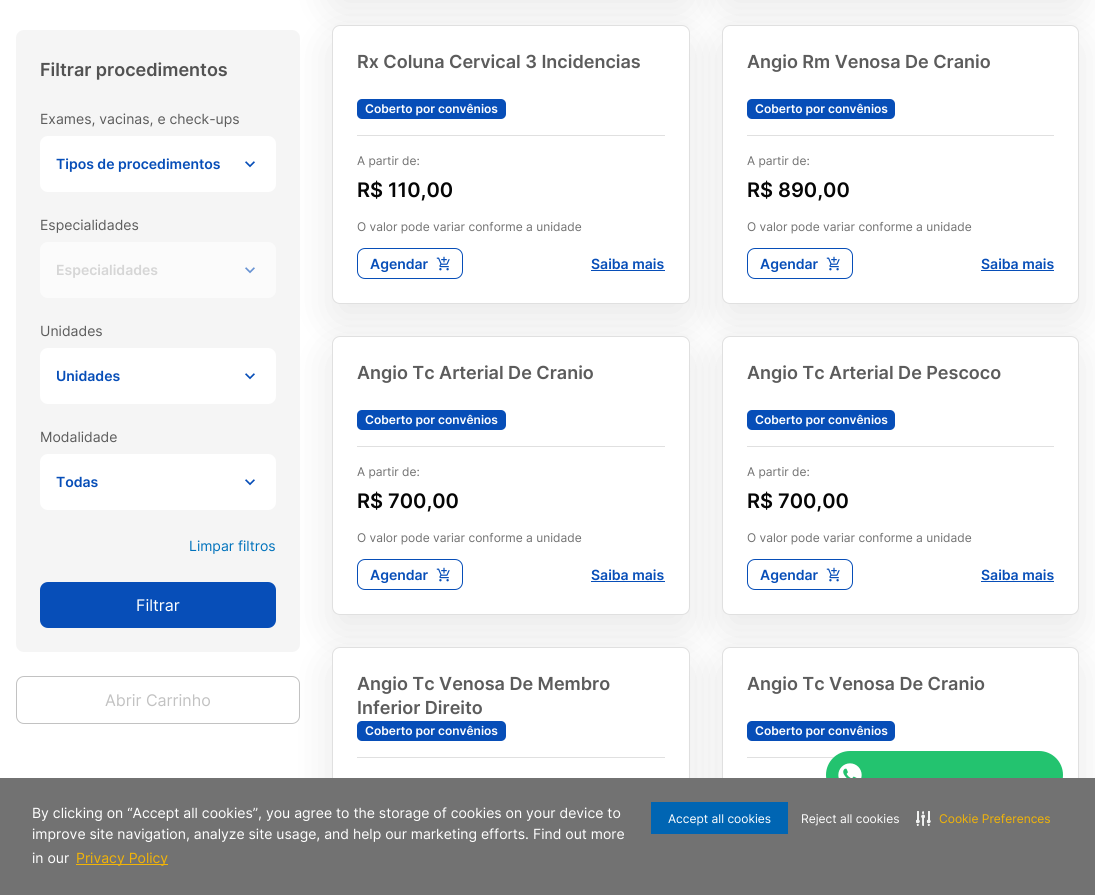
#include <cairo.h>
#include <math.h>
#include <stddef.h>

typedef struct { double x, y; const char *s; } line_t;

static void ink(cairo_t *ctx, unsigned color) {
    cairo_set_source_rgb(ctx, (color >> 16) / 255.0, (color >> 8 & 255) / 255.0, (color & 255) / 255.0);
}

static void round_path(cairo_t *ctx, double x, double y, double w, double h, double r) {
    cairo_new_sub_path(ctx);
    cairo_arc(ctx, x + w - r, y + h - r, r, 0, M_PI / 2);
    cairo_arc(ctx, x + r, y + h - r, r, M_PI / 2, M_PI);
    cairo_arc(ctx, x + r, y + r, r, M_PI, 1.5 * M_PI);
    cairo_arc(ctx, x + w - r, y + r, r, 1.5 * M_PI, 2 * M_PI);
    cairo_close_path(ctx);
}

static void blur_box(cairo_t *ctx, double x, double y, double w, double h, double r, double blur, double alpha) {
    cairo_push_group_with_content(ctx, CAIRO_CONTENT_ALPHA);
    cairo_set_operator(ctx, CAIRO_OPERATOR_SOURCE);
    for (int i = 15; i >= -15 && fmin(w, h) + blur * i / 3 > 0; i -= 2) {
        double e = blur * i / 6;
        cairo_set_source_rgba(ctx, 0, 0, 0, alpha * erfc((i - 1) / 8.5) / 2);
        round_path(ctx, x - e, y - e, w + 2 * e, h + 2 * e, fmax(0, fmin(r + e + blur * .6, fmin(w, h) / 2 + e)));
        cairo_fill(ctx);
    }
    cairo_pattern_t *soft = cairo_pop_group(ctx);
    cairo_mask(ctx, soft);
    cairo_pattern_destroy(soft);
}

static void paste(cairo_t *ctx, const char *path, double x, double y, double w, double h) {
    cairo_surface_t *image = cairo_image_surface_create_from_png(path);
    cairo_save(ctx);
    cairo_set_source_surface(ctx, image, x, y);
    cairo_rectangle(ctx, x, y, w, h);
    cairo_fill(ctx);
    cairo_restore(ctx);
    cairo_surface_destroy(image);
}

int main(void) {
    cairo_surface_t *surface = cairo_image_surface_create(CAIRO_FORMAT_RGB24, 1095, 895);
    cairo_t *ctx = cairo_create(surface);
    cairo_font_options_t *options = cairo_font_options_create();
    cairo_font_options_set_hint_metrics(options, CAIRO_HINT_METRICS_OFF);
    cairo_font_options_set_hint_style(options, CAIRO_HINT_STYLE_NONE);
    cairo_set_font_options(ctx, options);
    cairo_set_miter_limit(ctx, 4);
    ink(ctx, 0xFFFFFF);
    cairo_paint(ctx);
    ink(ctx, 0x000000);
    blur_box(ctx, 328, -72, 366, 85, 12, 20, 0.08);
    blur_box(ctx, 328, 37, 366, 287, 12, 20, 0.08);
    blur_box(ctx, 718, -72, 365, 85, 12, 20, 0.08);
    ink(ctx, 0xFFFFFF);
    round_path(ctx, 332.5, 25.5, 357, 278, 7.5);
    cairo_fill_preserve(ctx);
    ink(ctx, 0xE0E0E0);
    cairo_set_line_width(ctx, 1);
    cairo_stroke(ctx);
    ink(ctx, 0x074EB8);
    cairo_rectangle(ctx, 591, 270, 74, 1);
    cairo_fill(ctx);
    ink(ctx, 0x000000);
    blur_box(ctx, 718, 37, 365, 287, 12, 20, 0.08);
    ink(ctx, 0xFFFFFF);
    round_path(ctx, 722.5, 25.5, 356, 278, 7.5);
    cairo_fill_preserve(ctx);
    ink(ctx, 0xE0E0E0);
    cairo_stroke(ctx);
    ink(ctx, 0x000000);
    blur_box(ctx, 328, 348, 366, 287, 12, 20, 0.08);
    ink(ctx, 0xFFFFFF);
    round_path(ctx, 332.5, 336.5, 357, 278, 7.5);
    cairo_fill_preserve(ctx);
    ink(ctx, 0xE0E0E0);
    cairo_stroke(ctx);
    ink(ctx, 0x074EB8);
    cairo_rectangle(ctx, 591, 581, 74, 1);
    cairo_fill(ctx);
    ink(ctx, 0x000000);
    blur_box(ctx, 718, 348, 365, 287, 12, 20, 0.08);
    ink(ctx, 0xFFFFFF);
    round_path(ctx, 722.5, 336.5, 356, 278, 7.5);
    cairo_fill_preserve(ctx);
    ink(ctx, 0xE0E0E0);
    cairo_stroke(ctx);
    ink(ctx, 0x000000);
    blur_box(ctx, 328, 659, 366, 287, 12, 20, 0.08);
    ink(ctx, 0xF5F5F5);
    round_path(ctx, 16, 30, 284, 622, 8);
    cairo_fill(ctx);
    cairo_select_font_face(ctx, "Inter SemiBold", CAIRO_FONT_SLANT_NORMAL, CAIRO_FONT_WEIGHT_NORMAL);
    cairo_set_font_size(ctx, 18);
    ink(ctx, 0x525252);
    cairo_move_to(ctx, 40, 76);
    cairo_show_text(ctx, "Filtrar procedimentos");
    cairo_select_font_face(ctx, "Inter", CAIRO_FONT_SLANT_NORMAL, CAIRO_FONT_WEIGHT_NORMAL);
    cairo_set_font_size(ctx, 14);
    ink(ctx, 0x5C5C5C);
    cairo_move_to(ctx, 40, 124);
    cairo_show_text(ctx, "Exames, vacinas, e check-ups");
    ink(ctx, 0xFFFFFF);
    round_path(ctx, 40, 136, 236, 56, 8);
    cairo_fill(ctx);
    cairo_select_font_face(ctx, "Inter SemiBold", CAIRO_FONT_SLANT_NORMAL, CAIRO_FONT_WEIGHT_NORMAL);
    ink(ctx, 0x074EB8);
    cairo_move_to(ctx, 56, 169);
    cairo_show_text(ctx, "Tipos de procedimentos");
    paste(ctx, "media/1.png", 245, 161, 10, 7);
    cairo_select_font_face(ctx, "Inter", CAIRO_FONT_SLANT_NORMAL, CAIRO_FONT_WEIGHT_NORMAL);
    ink(ctx, 0x5C5C5C);
    cairo_move_to(ctx, 40, 230);
    cairo_show_text(ctx, "Especialidades");
    ink(ctx, 0xFBFBFB);
    round_path(ctx, 40, 242, 236, 56, 8);
    cairo_fill(ctx);
    cairo_select_font_face(ctx, "Inter SemiBold", CAIRO_FONT_SLANT_NORMAL, CAIRO_FONT_WEIGHT_NORMAL);
    ink(ctx, 0xD6D6D6);
    cairo_move_to(ctx, 56, 275);
    cairo_show_text(ctx, "Especialidades");
    paste(ctx, "media/2.png", 245, 267, 10, 7);
    cairo_select_font_face(ctx, "Inter", CAIRO_FONT_SLANT_NORMAL, CAIRO_FONT_WEIGHT_NORMAL);
    ink(ctx, 0x5C5C5C);
    cairo_move_to(ctx, 40, 336);
    cairo_show_text(ctx, "Unidades");
    ink(ctx, 0xFFFFFF);
    round_path(ctx, 40, 348, 236, 56, 8);
    cairo_fill(ctx);
    cairo_select_font_face(ctx, "Inter SemiBold", CAIRO_FONT_SLANT_NORMAL, CAIRO_FONT_WEIGHT_NORMAL);
    ink(ctx, 0x074EB8);
    cairo_move_to(ctx, 56, 381);
    cairo_show_text(ctx, "Unidades");
    paste(ctx, "media/1.png", 245, 373, 10, 7);
    cairo_select_font_face(ctx, "Inter", CAIRO_FONT_SLANT_NORMAL, CAIRO_FONT_WEIGHT_NORMAL);
    ink(ctx, 0x5C5C5C);
    cairo_move_to(ctx, 40, 442);
    cairo_show_text(ctx, "Modalidade");
    ink(ctx, 0xFFFFFF);
    round_path(ctx, 40, 454, 236, 56, 8);
    cairo_fill(ctx);
    cairo_select_font_face(ctx, "Inter SemiBold", CAIRO_FONT_SLANT_NORMAL, CAIRO_FONT_WEIGHT_NORMAL);
    ink(ctx, 0x074EB8);
    cairo_move_to(ctx, 56, 487);
    cairo_show_text(ctx, "Todas");
    paste(ctx, "media/1.png", 245, 479, 10, 7);
    cairo_select_font_face(ctx, "Inter", CAIRO_FONT_SLANT_NORMAL, CAIRO_FONT_WEIGHT_NORMAL);
    ink(ctx, 0x0072BC);
    cairo_move_to(ctx, 189, 551);
    cairo_show_text(ctx, "Limpar filtros");
    ink(ctx, 0x074EB8);
    round_path(ctx, 40, 582, 236, 46, 8);
    cairo_fill(ctx);
    cairo_set_font_size(ctx, 16);
    ink(ctx, 0xFFFFFF);
    cairo_move_to(ctx, 136, 611);
    cairo_show_text(ctx, "Filtrar");
    round_path(ctx, 16.5, 676.5, 283, 47, 7.5);
    ink(ctx, 0xC2C2C2);
    cairo_stroke(ctx);
    cairo_move_to(ctx, 105, 706);
    cairo_show_text(ctx, "Abrir Carrinho");
    cairo_select_font_face(ctx, "Inter SemiBold", CAIRO_FONT_SLANT_NORMAL, CAIRO_FONT_WEIGHT_NORMAL);
    cairo_set_font_size(ctx, 18);
    ink(ctx, 0x5C5C5C);
    cairo_move_to(ctx, 357, 68);
    cairo_show_text(ctx, "Rx Coluna Cervical 3 Incidencias");
    ink(ctx, 0x074EB8);
    round_path(ctx, 357, 99, 149, 20, 5);
    cairo_fill(ctx);
    cairo_set_font_size(ctx, 12);
    ink(ctx, 0xFFFFFF);
    cairo_move_to(ctx, 365, 113);
    cairo_show_text(ctx, "Coberto por convênios");
    ink(ctx, 0xE0E0E0);
    cairo_rectangle(ctx, 357, 135, 308, 1);
    cairo_fill(ctx);
    cairo_select_font_face(ctx, "Inter", CAIRO_FONT_SLANT_NORMAL, CAIRO_FONT_WEIGHT_NORMAL);
    ink(ctx, 0x717171);
    cairo_move_to(ctx, 357, 165);
    cairo_show_text(ctx, "A partir de:");
    cairo_select_font_face(ctx, "Inter SemiBold", CAIRO_FONT_SLANT_NORMAL, CAIRO_FONT_WEIGHT_NORMAL);
    cairo_set_font_size(ctx, 20);
    ink(ctx, 0x050505);
    cairo_move_to(ctx, 357, 197);
    cairo_show_text(ctx, "R$ 110,00");
    cairo_select_font_face(ctx, "Inter", CAIRO_FONT_SLANT_NORMAL, CAIRO_FONT_WEIGHT_NORMAL);
    cairo_set_font_size(ctx, 12);
    ink(ctx, 0x717171);
    cairo_move_to(ctx, 357, 231);
    cairo_show_text(ctx, "O valor pode variar conforme a unidade");
    round_path(ctx, 357.5, 248.5, 105, 30, 7.5);
    ink(ctx, 0x074EB8);
    cairo_stroke(ctx);
    cairo_select_font_face(ctx, "Inter SemiBold", CAIRO_FONT_SLANT_NORMAL, CAIRO_FONT_WEIGHT_NORMAL);
    cairo_set_font_size(ctx, 14);
    cairo_move_to(ctx, 370, 269);
    cairo_show_text(ctx, "Agendar");
    paste(ctx, "media/3.png", 436, 256, 14, 15);
    cairo_move_to(ctx, 591, 269);
    cairo_show_text(ctx, "Saiba mais");
    cairo_set_font_size(ctx, 18);
    ink(ctx, 0x5C5C5C);
    cairo_move_to(ctx, 747, 68);
    cairo_show_text(ctx, "Angio Rm Venosa De Cranio");
    ink(ctx, 0x074EB8);
    round_path(ctx, 747, 99, 148, 20, 5);
    cairo_fill(ctx);
    cairo_set_font_size(ctx, 12);
    ink(ctx, 0xFFFFFF);
    cairo_move_to(ctx, 755, 113);
    cairo_show_text(ctx, "Coberto por convênios");
    ink(ctx, 0xE0E0E0);
    cairo_rectangle(ctx, 747, 135, 307, 1);
    cairo_fill(ctx);
    cairo_select_font_face(ctx, "Inter", CAIRO_FONT_SLANT_NORMAL, CAIRO_FONT_WEIGHT_NORMAL);
    ink(ctx, 0x717171);
    cairo_move_to(ctx, 747, 165);
    cairo_show_text(ctx, "A partir de:");
    cairo_select_font_face(ctx, "Inter SemiBold", CAIRO_FONT_SLANT_NORMAL, CAIRO_FONT_WEIGHT_NORMAL);
    cairo_set_font_size(ctx, 20);
    ink(ctx, 0x050505);
    cairo_move_to(ctx, 747, 197);
    cairo_show_text(ctx, "R$ 890,00");
    cairo_select_font_face(ctx, "Inter", CAIRO_FONT_SLANT_NORMAL, CAIRO_FONT_WEIGHT_NORMAL);
    cairo_set_font_size(ctx, 12);
    ink(ctx, 0x717171);
    cairo_move_to(ctx, 747, 231);
    cairo_show_text(ctx, "O valor pode variar conforme a unidade");
    round_path(ctx, 747.5, 248.5, 105, 30, 7.5);
    ink(ctx, 0x074EB8);
    cairo_stroke(ctx);
    cairo_select_font_face(ctx, "Inter SemiBold", CAIRO_FONT_SLANT_NORMAL, CAIRO_FONT_WEIGHT_NORMAL);
    cairo_set_font_size(ctx, 14);
    cairo_move_to(ctx, 760, 269);
    cairo_show_text(ctx, "Agendar");
    paste(ctx, "media/3.png", 826, 256, 14, 15);
    cairo_move_to(ctx, 981, 269);
    cairo_show_text(ctx, "Saiba mais");
    cairo_rectangle(ctx, 981, 270, 73, 1);
    cairo_fill(ctx);
    cairo_set_font_size(ctx, 18);
    ink(ctx, 0x5C5C5C);
    cairo_move_to(ctx, 357, 379);
    cairo_show_text(ctx, "Angio Tc Arterial De Cranio");
    ink(ctx, 0x074EB8);
    round_path(ctx, 357, 410, 149, 20, 5);
    cairo_fill(ctx);
    cairo_set_font_size(ctx, 12);
    ink(ctx, 0xFFFFFF);
    cairo_move_to(ctx, 365, 424);
    cairo_show_text(ctx, "Coberto por convênios");
    ink(ctx, 0xE0E0E0);
    cairo_rectangle(ctx, 357, 446, 308, 1);
    cairo_fill(ctx);
    cairo_select_font_face(ctx, "Inter", CAIRO_FONT_SLANT_NORMAL, CAIRO_FONT_WEIGHT_NORMAL);
    ink(ctx, 0x717171);
    cairo_move_to(ctx, 357, 476);
    cairo_show_text(ctx, "A partir de:");
    cairo_select_font_face(ctx, "Inter SemiBold", CAIRO_FONT_SLANT_NORMAL, CAIRO_FONT_WEIGHT_NORMAL);
    cairo_set_font_size(ctx, 20);
    ink(ctx, 0x050505);
    cairo_move_to(ctx, 357, 508);
    cairo_show_text(ctx, "R$ 700,00");
    cairo_select_font_face(ctx, "Inter", CAIRO_FONT_SLANT_NORMAL, CAIRO_FONT_WEIGHT_NORMAL);
    cairo_set_font_size(ctx, 12);
    ink(ctx, 0x717171);
    cairo_move_to(ctx, 357, 542);
    cairo_show_text(ctx, "O valor pode variar conforme a unidade");
    round_path(ctx, 357.5, 559.5, 105, 30, 7.5);
    ink(ctx, 0x074EB8);
    cairo_stroke(ctx);
    cairo_select_font_face(ctx, "Inter SemiBold", CAIRO_FONT_SLANT_NORMAL, CAIRO_FONT_WEIGHT_NORMAL);
    cairo_set_font_size(ctx, 14);
    cairo_move_to(ctx, 370, 580);
    cairo_show_text(ctx, "Agendar");
    paste(ctx, "media/3.png", 436, 567, 14, 15);
    cairo_move_to(ctx, 591, 580);
    cairo_show_text(ctx, "Saiba mais");
    cairo_set_font_size(ctx, 18);
    ink(ctx, 0x5C5C5C);
    cairo_move_to(ctx, 747, 379);
    cairo_show_text(ctx, "Angio Tc Arterial De Pescoco");
    ink(ctx, 0x074EB8);
    round_path(ctx, 747, 410, 148, 20, 5);
    cairo_fill(ctx);
    cairo_set_font_size(ctx, 12);
    ink(ctx, 0xFFFFFF);
    cairo_move_to(ctx, 755, 424);
    cairo_show_text(ctx, "Coberto por convênios");
    ink(ctx, 0xE0E0E0);
    cairo_rectangle(ctx, 747, 446, 307, 1);
    cairo_fill(ctx);
    cairo_select_font_face(ctx, "Inter", CAIRO_FONT_SLANT_NORMAL, CAIRO_FONT_WEIGHT_NORMAL);
    ink(ctx, 0x717171);
    cairo_move_to(ctx, 747, 476);
    cairo_show_text(ctx, "A partir de:");
    cairo_select_font_face(ctx, "Inter SemiBold", CAIRO_FONT_SLANT_NORMAL, CAIRO_FONT_WEIGHT_NORMAL);
    cairo_set_font_size(ctx, 20);
    ink(ctx, 0x050505);
    cairo_move_to(ctx, 747, 508);
    cairo_show_text(ctx, "R$ 700,00");
    cairo_select_font_face(ctx, "Inter", CAIRO_FONT_SLANT_NORMAL, CAIRO_FONT_WEIGHT_NORMAL);
    cairo_set_font_size(ctx, 12);
    ink(ctx, 0x717171);
    cairo_move_to(ctx, 747, 542);
    cairo_show_text(ctx, "O valor pode variar conforme a unidade");
    round_path(ctx, 747.5, 559.5, 105, 30, 7.5);
    ink(ctx, 0x074EB8);
    cairo_stroke(ctx);
    cairo_select_font_face(ctx, "Inter SemiBold", CAIRO_FONT_SLANT_NORMAL, CAIRO_FONT_WEIGHT_NORMAL);
    cairo_set_font_size(ctx, 14);
    cairo_move_to(ctx, 760, 580);
    cairo_show_text(ctx, "Agendar");
    paste(ctx, "media/3.png", 826, 567, 14, 15);
    cairo_move_to(ctx, 981, 580);
    cairo_show_text(ctx, "Saiba mais");
    cairo_rectangle(ctx, 981, 581, 73, 1);
    cairo_fill(ctx);
    ink(ctx, 0xFFFFFF);
    round_path(ctx, 332.5, 647.5, 357, 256, 7.5);
    cairo_fill_preserve(ctx);
    ink(ctx, 0xE0E0E0);
    cairo_stroke(ctx);
    cairo_set_font_size(ctx, 18);
    ink(ctx, 0x5C5C5C);
    cairo_move_to(ctx, 357, 690);
    cairo_show_text(ctx, "Angio Tc Venosa De Membro");
    cairo_move_to(ctx, 357, 714);
    cairo_show_text(ctx, "Inferior Direito");
    ink(ctx, 0x074EB8);
    round_path(ctx, 357, 721, 149, 20, 5);
    cairo_fill(ctx);
    cairo_set_font_size(ctx, 12);
    ink(ctx, 0xFFFFFF);
    cairo_move_to(ctx, 365, 735);
    cairo_show_text(ctx, "Coberto por convênios");
    ink(ctx, 0x000000);
    blur_box(ctx, 718, 659, 365, 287, 12, 20, 0.08);
    ink(ctx, 0xE0E0E0);
    cairo_rectangle(ctx, 357, 757, 308, 1);
    cairo_fill(ctx);
    ink(ctx, 0xFFFFFF);
    round_path(ctx, 722.5, 647.5, 356, 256, 7.5);
    cairo_fill_preserve(ctx);
    ink(ctx, 0xE0E0E0);
    cairo_stroke(ctx);
    cairo_set_font_size(ctx, 18);
    ink(ctx, 0x5C5C5C);
    cairo_move_to(ctx, 747, 690);
    cairo_show_text(ctx, "Angio Tc Venosa De Cranio");
    ink(ctx, 0x074EB8);
    round_path(ctx, 747, 721, 148, 20, 5);
    cairo_fill(ctx);
    cairo_set_font_size(ctx, 12);
    ink(ctx, 0xFFFFFF);
    cairo_move_to(ctx, 755, 735);
    cairo_show_text(ctx, "Coberto por convênios");
    ink(ctx, 0xE0E0E0);
    cairo_rectangle(ctx, 747, 757, 88, 1);
    cairo_fill(ctx);
    ink(ctx, 0x23C36F);
    round_path(ctx, 826, 751, 237, 48, 24);
    cairo_fill(ctx);
    paste(ctx, "media/4.png", 838, 763, 24, 15);
    ink(ctx, 0x727272);
    cairo_rectangle(ctx, 0, 778, 1095, 117);
    cairo_fill(ctx);
    cairo_select_font_face(ctx, "Inter", CAIRO_FONT_SLANT_NORMAL, CAIRO_FONT_WEIGHT_NORMAL);
    cairo_set_font_size(ctx, 14);
    ink(ctx, 0xFFFFFF);
    {
        static const line_t items[] = {
            {32, 818, "By clicking on “Accept all cookies”, you agree to the storage of cookies on your device to"},
            {32, 839, "improve site navigation, analyze site usage, and help our marketing efforts. Find out more"},
            {32, 863, "in our"},
        };
        for (size_t i = 0; i < sizeof items / sizeof *items; i++) {
            cairo_move_to(ctx, items[i].x, items[i].y);
            cairo_show_text(ctx, items[i].s);
        }
    }
    ink(ctx, 0xF2B407);
    cairo_rectangle(ctx, 76, 864, 92, 1);
    cairo_fill(ctx);
    cairo_move_to(ctx, 76, 863);
    cairo_show_text(ctx, "Privacy Policy");
    ink(ctx, 0x0065B3);
    cairo_rectangle(ctx, 651, 802, 137, 32);
    cairo_fill(ctx);
    cairo_set_font_size(ctx, 12);
    ink(ctx, 0xFFFFFF);
    cairo_move_to(ctx, 668, 823);
    cairo_show_text(ctx, "Accept all cookies");
    cairo_move_to(ctx, 801, 823);
    cairo_show_text(ctx, "Reject all cookies");
    paste(ctx, "media/5.png", 916, 811, 15, 15);
    ink(ctx, 0xF2B407);
    cairo_move_to(ctx, 939, 823);
    cairo_show_text(ctx, "Cookie Preferences");
    cairo_surface_write_to_png(surface, "image.png");
    cairo_font_options_destroy(options);
    cairo_destroy(ctx);
    cairo_surface_destroy(surface);
    return 0;
}
